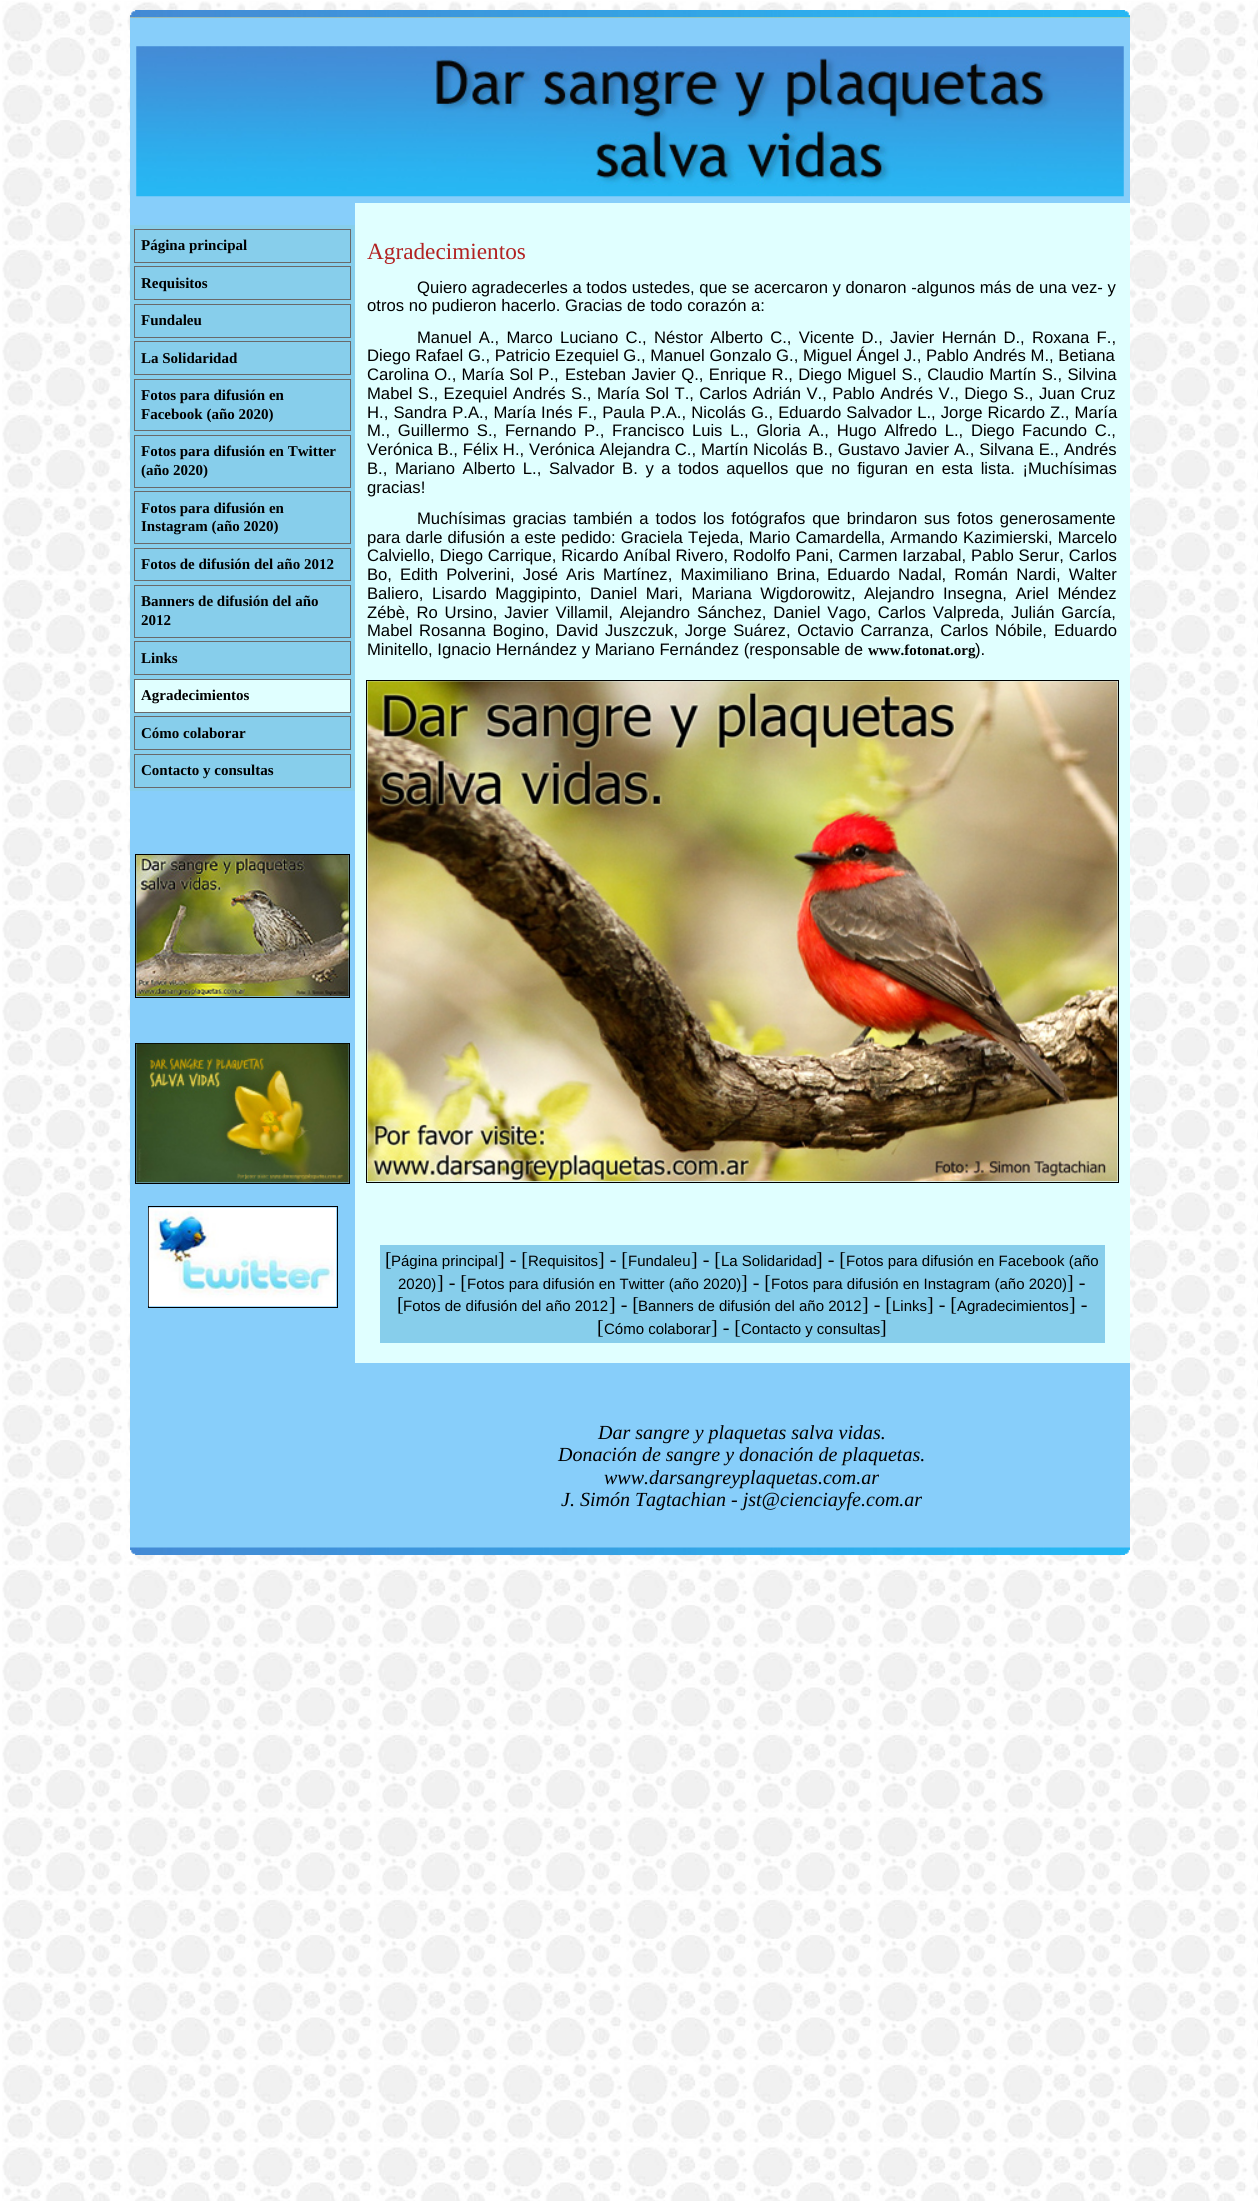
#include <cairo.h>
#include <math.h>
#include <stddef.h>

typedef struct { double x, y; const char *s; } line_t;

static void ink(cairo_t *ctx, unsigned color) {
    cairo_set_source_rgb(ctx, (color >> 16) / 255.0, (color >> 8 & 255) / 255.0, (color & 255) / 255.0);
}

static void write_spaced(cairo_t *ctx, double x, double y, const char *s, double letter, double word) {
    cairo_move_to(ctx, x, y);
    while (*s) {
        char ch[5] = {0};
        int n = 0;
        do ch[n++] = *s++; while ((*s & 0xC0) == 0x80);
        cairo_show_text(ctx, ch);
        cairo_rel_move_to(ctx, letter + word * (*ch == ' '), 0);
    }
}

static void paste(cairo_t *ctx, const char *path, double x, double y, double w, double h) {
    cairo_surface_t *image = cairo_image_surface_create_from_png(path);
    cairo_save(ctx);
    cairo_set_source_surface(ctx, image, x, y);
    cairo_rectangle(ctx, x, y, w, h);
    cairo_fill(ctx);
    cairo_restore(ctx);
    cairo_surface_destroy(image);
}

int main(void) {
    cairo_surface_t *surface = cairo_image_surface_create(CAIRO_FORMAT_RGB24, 1258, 2201);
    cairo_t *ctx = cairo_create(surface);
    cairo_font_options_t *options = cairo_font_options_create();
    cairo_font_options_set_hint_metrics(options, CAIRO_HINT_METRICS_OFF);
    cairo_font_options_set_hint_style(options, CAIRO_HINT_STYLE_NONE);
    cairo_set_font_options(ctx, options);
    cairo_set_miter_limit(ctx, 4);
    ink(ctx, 0xFFFFFF);
    cairo_paint(ctx);
    paste(ctx, "media/1.png", 2, 1, 1256, 2200);
    ink(ctx, 0xF0E68C);
    cairo_rectangle(ctx, 130, 17, 1000, 1);
    cairo_fill(ctx);
    paste(ctx, "media/2.png", 130, 10, 1000, 8);
    ink(ctx, 0x87CEFA);
    cairo_rectangle(ctx, 130, 18, 1000, 185);
    cairo_fill(ctx);
    paste(ctx, "media/3.png", 136, 46, 988, 151);
    cairo_rectangle(ctx, 130, 203, 225, 1345);
    cairo_fill(ctx);
    ink(ctx, 0x87CEEB);
    cairo_rectangle(ctx, 130, 225, 225, 566);
    cairo_fill(ctx);
    cairo_rectangle(ctx, 134.5, 229.5, 216, 33);
    ink(ctx, 0x696969);
    cairo_set_line_width(ctx, 1);
    cairo_stroke(ctx);
    cairo_select_font_face(ctx, "Liberation Serif", CAIRO_FONT_SLANT_NORMAL, CAIRO_FONT_WEIGHT_BOLD);
    cairo_set_font_size(ctx, 15);
    ink(ctx, 0x000000);
    cairo_move_to(ctx, 141, 250);
    cairo_show_text(ctx, "Página principal");
    cairo_rectangle(ctx, 134.5, 266.5, 216, 33);
    ink(ctx, 0x696969);
    cairo_stroke(ctx);
    ink(ctx, 0x000000);
    cairo_move_to(ctx, 141, 288);
    cairo_show_text(ctx, "Requisitos");
    cairo_rectangle(ctx, 134.5, 304.5, 216, 33);
    ink(ctx, 0x696969);
    cairo_stroke(ctx);
    ink(ctx, 0x000000);
    cairo_move_to(ctx, 141, 325);
    cairo_show_text(ctx, "Fundaleu");
    cairo_rectangle(ctx, 134.5, 341.5, 216, 33);
    ink(ctx, 0x696969);
    cairo_stroke(ctx);
    ink(ctx, 0x000000);
    cairo_move_to(ctx, 141, 363);
    cairo_show_text(ctx, "La Solidaridad");
    cairo_rectangle(ctx, 134.5, 379.5, 216, 51);
    ink(ctx, 0x696969);
    cairo_stroke(ctx);
    ink(ctx, 0x000000);
    cairo_move_to(ctx, 141, 400);
    cairo_show_text(ctx, "Fotos para difusión en");
    cairo_move_to(ctx, 141, 419);
    cairo_show_text(ctx, "Facebook (año 2020)");
    cairo_rectangle(ctx, 134.5, 435.5, 216, 52);
    ink(ctx, 0x696969);
    cairo_stroke(ctx);
    ink(ctx, 0x000000);
    cairo_move_to(ctx, 141, 456);
    cairo_show_text(ctx, "Fotos para difusión en Twitter");
    cairo_move_to(ctx, 141, 475);
    cairo_show_text(ctx, "(año 2020)");
    cairo_rectangle(ctx, 134.5, 491.5, 216, 52);
    ink(ctx, 0x696969);
    cairo_stroke(ctx);
    ink(ctx, 0x000000);
    cairo_move_to(ctx, 141, 513);
    cairo_show_text(ctx, "Fotos para difusión en");
    cairo_move_to(ctx, 141, 531);
    cairo_show_text(ctx, "Instagram (año 2020)");
    cairo_rectangle(ctx, 134.5, 548.5, 216, 32);
    ink(ctx, 0x696969);
    cairo_stroke(ctx);
    ink(ctx, 0x000000);
    cairo_move_to(ctx, 141, 569);
    cairo_show_text(ctx, "Fotos de difusión del año 2012");
    cairo_rectangle(ctx, 134.5, 585.5, 216, 52);
    ink(ctx, 0x696969);
    cairo_stroke(ctx);
    ink(ctx, 0x000000);
    cairo_move_to(ctx, 141, 606);
    cairo_show_text(ctx, "Banners de difusión del año");
    cairo_move_to(ctx, 141, 625);
    cairo_show_text(ctx, "2012");
    cairo_rectangle(ctx, 134.5, 641.5, 216, 33);
    ink(ctx, 0x696969);
    cairo_stroke(ctx);
    ink(ctx, 0x000000);
    cairo_move_to(ctx, 141, 663);
    cairo_show_text(ctx, "Links");
    ink(ctx, 0xE0FFFF);
    cairo_rectangle(ctx, 134.5, 679.5, 216, 33);
    cairo_fill_preserve(ctx);
    ink(ctx, 0x696969);
    cairo_stroke(ctx);
    ink(ctx, 0x000000);
    cairo_move_to(ctx, 141, 700);
    cairo_show_text(ctx, "Agradecimientos");
    cairo_rectangle(ctx, 134.5, 716.5, 216, 33);
    ink(ctx, 0x696969);
    cairo_stroke(ctx);
    ink(ctx, 0x000000);
    cairo_move_to(ctx, 141, 738);
    cairo_show_text(ctx, "Cómo colaborar");
    cairo_rectangle(ctx, 134.5, 754.5, 216, 33);
    ink(ctx, 0x696969);
    cairo_stroke(ctx);
    ink(ctx, 0x000000);
    cairo_move_to(ctx, 141, 775);
    cairo_show_text(ctx, "Contacto y consultas");
    cairo_rectangle(ctx, 135.5, 854.5, 214, 143);
    cairo_stroke(ctx);
    paste(ctx, "media/4.png", 136, 855, 213, 142);
    cairo_rectangle(ctx, 135.5, 1043.5, 214, 140);
    cairo_stroke(ctx);
    paste(ctx, "media/5.png", 136, 1043, 213, 140);
    cairo_rectangle(ctx, 148.5, 1206.5, 189, 101);
    cairo_stroke(ctx);
    paste(ctx, "media/6.png", 148, 1207, 189, 100);
    ink(ctx, 0xE0FFFF);
    cairo_rectangle(ctx, 355, 203, 775, 1160);
    cairo_fill(ctx);
    cairo_select_font_face(ctx, "Liberation Serif", CAIRO_FONT_SLANT_NORMAL, CAIRO_FONT_WEIGHT_NORMAL);
    cairo_set_font_size(ctx, 23.25);
    ink(ctx, 0xB22222);
    cairo_move_to(ctx, 367, 259);
    cairo_show_text(ctx, "Agradecimientos");
    cairo_select_font_face(ctx, "Liberation Sans", CAIRO_FONT_SLANT_NORMAL, CAIRO_FONT_WEIGHT_NORMAL);
    cairo_set_font_size(ctx, 16.65);
    ink(ctx, 0x000000);
    cairo_move_to(ctx, 417, 293);
    cairo_show_text(ctx, "Quiero agradecerles a todos ustedes, que se acercaron y donaron -algunos más de una vez- y");
    cairo_move_to(ctx, 367, 311);
    cairo_show_text(ctx, "otros no pudieron hacerlo. Gracias de todo corazón a:");
    write_spaced(ctx, 417, 343, "Manuel A., Marco Luciano C., Néstor Alberto C., Vicente D., Javier Hernán D., Roxana F.,", 0, 2.6);
    cairo_move_to(ctx, 367, 361);
    cairo_show_text(ctx, "Diego Rafael G., Patricio Ezequiel G., Manuel Gonzalo G., Miguel Ángel J., Pablo Andrés M., Betiana");
    write_spaced(ctx, 367, 380, "Carolina O., María Sol P.,", 0, 0.5);
    write_spaced(ctx, 565, 380, "Esteban Javier Q., Enrique R., Diego Miguel S., Claudio Martín S., Silvina", 0, 0.75);
    write_spaced(ctx, 367, 399, "Mabel S., Ezequiel Andrés S.,", 0, 0.8);
    write_spaced(ctx, 597, 399, "María Sol T., Carlos Adrián V., Pablo Andrés V., Diego S., Juan Cruz", 0, 0.8);
    write_spaced(ctx, 367, 418, "H., Sandra P.A., María Inés F., Paula P.A., Nicolás G., Eduardo Salvador L., Jorge Ricardo Z., María", 0, 0.5);
    write_spaced(ctx, 367, 436, "M., Guillermo S., Fernando P., Francisco Luis L., Gloria A., Hugo Alfredo L., Diego Facundo C.,", 0, 3.1);
    write_spaced(ctx, 367, 455, "Verónica B., Félix H., Verónica Alejandra C., Martín Nicolás B., Gustavo Javier A., Silvana E., Andrés", 0, 0.25);
    write_spaced(ctx, 367, 474, "B., Mariano Alberto L., Salvador B. y a todos aquellos que no figuran en esta lista. ¡Muchísimas", 0, 2.9);
    cairo_move_to(ctx, 367, 493);
    cairo_show_text(ctx, "gracias!");
    write_spaced(ctx, 417, 524, "Muchísimas gracias también a todos los fotógrafos que brindaron sus fotos generosamente", 0, 2.25);
    write_spaced(ctx, 367, 543, "para darle difusión a este pedido: Graciela Tejeda, Mario Camardella, Armando Kazimierski, Marcelo", 0, 0.5);
    write_spaced(ctx, 367, 561, "Calviello, Diego Carrique, Ricardo Aníbal Rivero, Rodolfo Pani, Carmen Iarzabal, Pablo Serur, Carlos", 0, 0.25);
    write_spaced(ctx, 367, 580, "Bo, Edith Polverini, José Aris Martínez, Maximiliano Brina,", 0, 3.5);
    write_spaced(ctx, 827, 580, "Eduardo Nadal, Román Nardi, Walter", 0, 3.5);
    write_spaced(ctx, 367, 599, "Baliero, Lisardo Maggipinto, Daniel Mari, Mariana Wigdorowitz,", 0, 4);
    write_spaced(ctx, 864, 599, "Alejandro Insegna, Ariel Méndez", 0, 4);
    write_spaced(ctx, 367, 618, "Zébè, Ro Ursino, Javier Villamil, Alejandro Sánchez, Daniel Vago, Carlos Valpreda, Julián García,", 0, 2.25);
    write_spaced(ctx, 367, 636, "Mabel Rosanna Bogino, David Juszczuk, Jorge Suárez, Octavio Carranza, Carlos Nóbile,", 0, 2.1);
    cairo_move_to(ctx, 1054, 636);
    cairo_show_text(ctx, "Eduardo");
    cairo_move_to(ctx, 367, 655);
    cairo_show_text(ctx, "Minitello, Ignacio Hernández y Mariano Fernández (responsable de");
    cairo_select_font_face(ctx, "Liberation Serif", CAIRO_FONT_SLANT_NORMAL, CAIRO_FONT_WEIGHT_BOLD);
    cairo_set_font_size(ctx, 15);
    cairo_move_to(ctx, 868, 655);
    cairo_show_text(ctx, "www.fotonat.org");
    cairo_select_font_face(ctx, "Liberation Sans", CAIRO_FONT_SLANT_NORMAL, CAIRO_FONT_WEIGHT_NORMAL);
    cairo_set_font_size(ctx, 16.65);
    cairo_move_to(ctx, 975, 655);
    cairo_show_text(ctx, ").");
    cairo_rectangle(ctx, 366.5, 680.5, 752, 502);
    cairo_stroke(ctx);
    paste(ctx, "media/7.png", 367, 681, 751, 501);
    ink(ctx, 0x87CEEB);
    cairo_rectangle(ctx, 380, 1245, 725, 98);
    cairo_fill(ctx);
    cairo_select_font_face(ctx, "Liberation Serif", CAIRO_FONT_SLANT_NORMAL, CAIRO_FONT_WEIGHT_NORMAL);
    cairo_set_font_size(ctx, 20);
    ink(ctx, 0x000000);
    cairo_move_to(ctx, 385, 1266);
    cairo_show_text(ctx, "[");
    cairo_select_font_face(ctx, "Liberation Sans", CAIRO_FONT_SLANT_NORMAL, CAIRO_FONT_WEIGHT_NORMAL);
    cairo_set_font_size(ctx, 15);
    cairo_move_to(ctx, 391, 1266);
    cairo_show_text(ctx, "Página principal");
    cairo_select_font_face(ctx, "Liberation Serif", CAIRO_FONT_SLANT_NORMAL, CAIRO_FONT_WEIGHT_NORMAL);
    cairo_set_font_size(ctx, 20);
    cairo_move_to(ctx, 498, 1266);
    cairo_show_text(ctx, "] - [");
    cairo_select_font_face(ctx, "Liberation Sans", CAIRO_FONT_SLANT_NORMAL, CAIRO_FONT_WEIGHT_NORMAL);
    cairo_set_font_size(ctx, 15);
    cairo_move_to(ctx, 528, 1266);
    cairo_show_text(ctx, "Requisitos");
    cairo_select_font_face(ctx, "Liberation Serif", CAIRO_FONT_SLANT_NORMAL, CAIRO_FONT_WEIGHT_NORMAL);
    cairo_set_font_size(ctx, 20);
    cairo_move_to(ctx, 598, 1266);
    cairo_show_text(ctx, "] - [");
    cairo_select_font_face(ctx, "Liberation Sans", CAIRO_FONT_SLANT_NORMAL, CAIRO_FONT_WEIGHT_NORMAL);
    cairo_set_font_size(ctx, 15);
    cairo_move_to(ctx, 628, 1266);
    cairo_show_text(ctx, "Fundaleu");
    cairo_select_font_face(ctx, "Liberation Serif", CAIRO_FONT_SLANT_NORMAL, CAIRO_FONT_WEIGHT_NORMAL);
    cairo_set_font_size(ctx, 20);
    cairo_move_to(ctx, 691, 1266);
    cairo_show_text(ctx, "] - [");
    cairo_select_font_face(ctx, "Liberation Sans", CAIRO_FONT_SLANT_NORMAL, CAIRO_FONT_WEIGHT_NORMAL);
    cairo_set_font_size(ctx, 15);
    cairo_move_to(ctx, 721, 1266);
    cairo_show_text(ctx, "La Solidaridad");
    cairo_select_font_face(ctx, "Liberation Serif", CAIRO_FONT_SLANT_NORMAL, CAIRO_FONT_WEIGHT_NORMAL);
    cairo_set_font_size(ctx, 20);
    cairo_move_to(ctx, 816, 1266);
    cairo_show_text(ctx, "] - [");
    cairo_select_font_face(ctx, "Liberation Sans", CAIRO_FONT_SLANT_NORMAL, CAIRO_FONT_WEIGHT_NORMAL);
    cairo_set_font_size(ctx, 15);
    cairo_move_to(ctx, 846, 1266);
    cairo_show_text(ctx, "Fotos para difusión en Facebook (año");
    cairo_move_to(ctx, 398, 1289);
    cairo_show_text(ctx, "2020)");
    cairo_select_font_face(ctx, "Liberation Serif", CAIRO_FONT_SLANT_NORMAL, CAIRO_FONT_WEIGHT_NORMAL);
    cairo_set_font_size(ctx, 20);
    cairo_move_to(ctx, 437, 1289);
    cairo_show_text(ctx, "] - [");
    cairo_select_font_face(ctx, "Liberation Sans", CAIRO_FONT_SLANT_NORMAL, CAIRO_FONT_WEIGHT_NORMAL);
    cairo_set_font_size(ctx, 15);
    cairo_move_to(ctx, 467, 1289);
    cairo_show_text(ctx, "Fotos para difusión en Twitter (año 2020)");
    cairo_select_font_face(ctx, "Liberation Serif", CAIRO_FONT_SLANT_NORMAL, CAIRO_FONT_WEIGHT_NORMAL);
    cairo_set_font_size(ctx, 20);
    cairo_move_to(ctx, 741, 1289);
    cairo_show_text(ctx, "] - [");
    cairo_select_font_face(ctx, "Liberation Sans", CAIRO_FONT_SLANT_NORMAL, CAIRO_FONT_WEIGHT_NORMAL);
    cairo_set_font_size(ctx, 15);
    cairo_move_to(ctx, 771, 1289);
    cairo_show_text(ctx, "Fotos para difusión en Instagram (año 2020)");
    cairo_select_font_face(ctx, "Liberation Serif", CAIRO_FONT_SLANT_NORMAL, CAIRO_FONT_WEIGHT_NORMAL);
    cairo_set_font_size(ctx, 20);
    cairo_move_to(ctx, 1067, 1289);
    cairo_show_text(ctx, "] -");
    cairo_move_to(ctx, 397, 1311);
    cairo_show_text(ctx, "[");
    cairo_select_font_face(ctx, "Liberation Sans", CAIRO_FONT_SLANT_NORMAL, CAIRO_FONT_WEIGHT_NORMAL);
    cairo_set_font_size(ctx, 15);
    cairo_move_to(ctx, 403, 1311);
    cairo_show_text(ctx, "Fotos de difusión del año 2012");
    cairo_select_font_face(ctx, "Liberation Serif", CAIRO_FONT_SLANT_NORMAL, CAIRO_FONT_WEIGHT_NORMAL);
    cairo_set_font_size(ctx, 20);
    cairo_move_to(ctx, 609, 1311);
    cairo_show_text(ctx, "] - [");
    cairo_select_font_face(ctx, "Liberation Sans", CAIRO_FONT_SLANT_NORMAL, CAIRO_FONT_WEIGHT_NORMAL);
    cairo_set_font_size(ctx, 15);
    cairo_move_to(ctx, 638, 1311);
    cairo_show_text(ctx, "Banners de difusión del año 2012");
    cairo_select_font_face(ctx, "Liberation Serif", CAIRO_FONT_SLANT_NORMAL, CAIRO_FONT_WEIGHT_NORMAL);
    cairo_set_font_size(ctx, 20);
    cairo_move_to(ctx, 862, 1311);
    cairo_show_text(ctx, "] - [");
    cairo_select_font_face(ctx, "Liberation Sans", CAIRO_FONT_SLANT_NORMAL, CAIRO_FONT_WEIGHT_NORMAL);
    cairo_set_font_size(ctx, 15);
    cairo_move_to(ctx, 892, 1311);
    cairo_show_text(ctx, "Links");
    cairo_select_font_face(ctx, "Liberation Serif", CAIRO_FONT_SLANT_NORMAL, CAIRO_FONT_WEIGHT_NORMAL);
    cairo_set_font_size(ctx, 20);
    cairo_move_to(ctx, 927, 1311);
    cairo_show_text(ctx, "] - [");
    cairo_select_font_face(ctx, "Liberation Sans", CAIRO_FONT_SLANT_NORMAL, CAIRO_FONT_WEIGHT_NORMAL);
    cairo_set_font_size(ctx, 15);
    cairo_move_to(ctx, 957, 1311);
    cairo_show_text(ctx, "Agradecimientos");
    cairo_select_font_face(ctx, "Liberation Serif", CAIRO_FONT_SLANT_NORMAL, CAIRO_FONT_WEIGHT_NORMAL);
    cairo_set_font_size(ctx, 20);
    cairo_move_to(ctx, 1069, 1311);
    cairo_show_text(ctx, "] -");
    cairo_move_to(ctx, 597, 1334);
    cairo_show_text(ctx, "[");
    cairo_select_font_face(ctx, "Liberation Sans", CAIRO_FONT_SLANT_NORMAL, CAIRO_FONT_WEIGHT_NORMAL);
    cairo_set_font_size(ctx, 15);
    cairo_move_to(ctx, 604, 1334);
    cairo_show_text(ctx, "Cómo colaborar");
    cairo_select_font_face(ctx, "Liberation Serif", CAIRO_FONT_SLANT_NORMAL, CAIRO_FONT_WEIGHT_NORMAL);
    cairo_set_font_size(ctx, 20);
    cairo_move_to(ctx, 711, 1334);
    cairo_show_text(ctx, "] - [");
    cairo_select_font_face(ctx, "Liberation Sans", CAIRO_FONT_SLANT_NORMAL, CAIRO_FONT_WEIGHT_NORMAL);
    cairo_set_font_size(ctx, 15);
    cairo_move_to(ctx, 741, 1334);
    cairo_show_text(ctx, "Contacto y consultas");
    cairo_select_font_face(ctx, "Liberation Serif", CAIRO_FONT_SLANT_NORMAL, CAIRO_FONT_WEIGHT_NORMAL);
    cairo_set_font_size(ctx, 20);
    cairo_move_to(ctx, 880, 1334);
    cairo_show_text(ctx, "]");
    ink(ctx, 0x87CEFA);
    cairo_rectangle(ctx, 355, 1363, 775, 185);
    cairo_fill(ctx);
    cairo_select_font_face(ctx, "Liberation Serif", CAIRO_FONT_SLANT_ITALIC, CAIRO_FONT_WEIGHT_NORMAL);
    ink(ctx, 0x000000);
    {
        static const line_t items[] = {
            {598, 1439, "Dar sangre y plaquetas salva vidas."},
            {558, 1461, "Donación de sangre y donación de plaquetas."},
            {604, 1484, "www.darsangreyplaquetas.com.ar"},
            {561, 1506, "J. Simón Tagtachian - jst@cienciayfe.com.ar"},
        };
        for (size_t i = 0; i < sizeof items / sizeof *items; i++) {
            cairo_move_to(ctx, items[i].x, items[i].y);
            cairo_show_text(ctx, items[i].s);
        }
    }
    paste(ctx, "media/8.png", 130, 1547, 1000, 8);
    cairo_surface_write_to_png(surface, "image.png");
    cairo_font_options_destroy(options);
    cairo_destroy(ctx);
    cairo_surface_destroy(surface);
    return 0;
}
